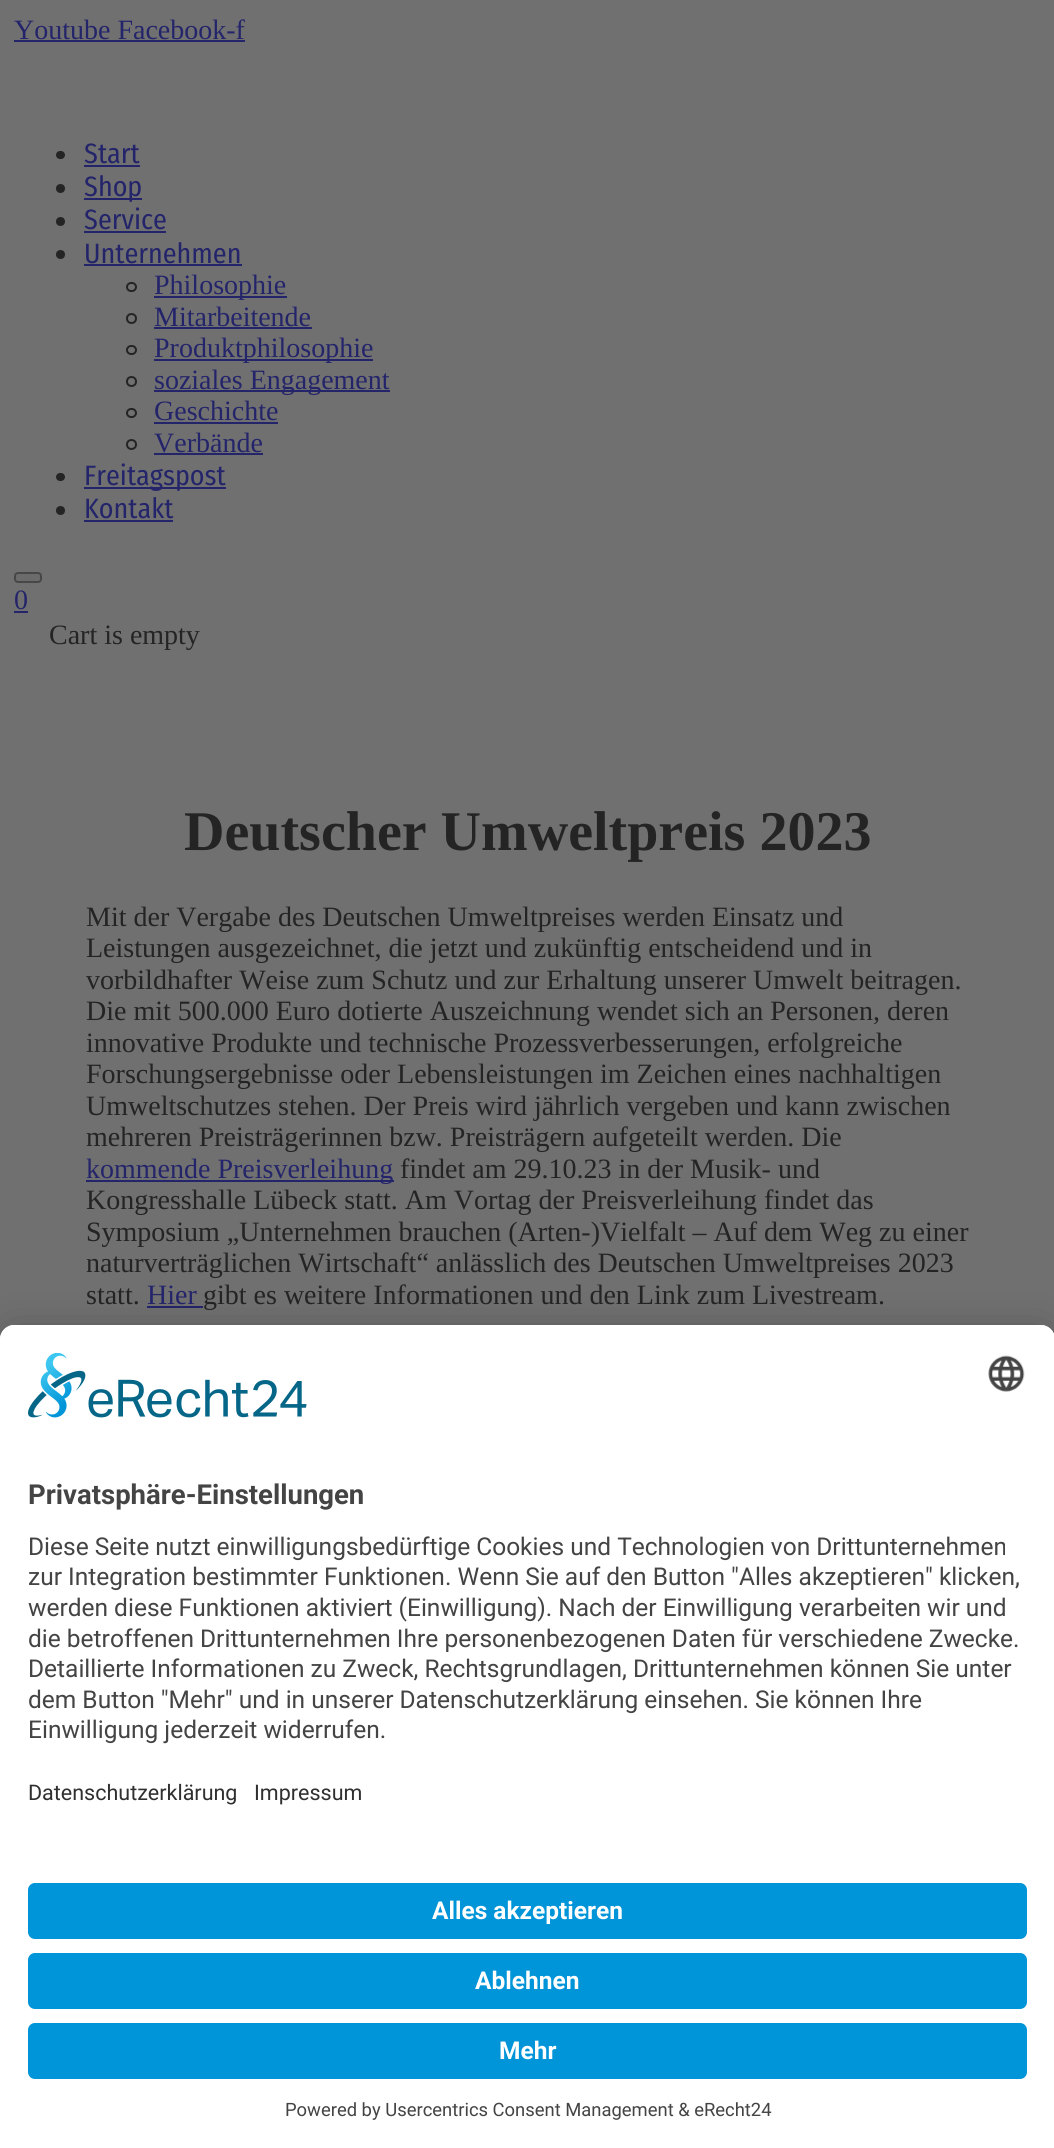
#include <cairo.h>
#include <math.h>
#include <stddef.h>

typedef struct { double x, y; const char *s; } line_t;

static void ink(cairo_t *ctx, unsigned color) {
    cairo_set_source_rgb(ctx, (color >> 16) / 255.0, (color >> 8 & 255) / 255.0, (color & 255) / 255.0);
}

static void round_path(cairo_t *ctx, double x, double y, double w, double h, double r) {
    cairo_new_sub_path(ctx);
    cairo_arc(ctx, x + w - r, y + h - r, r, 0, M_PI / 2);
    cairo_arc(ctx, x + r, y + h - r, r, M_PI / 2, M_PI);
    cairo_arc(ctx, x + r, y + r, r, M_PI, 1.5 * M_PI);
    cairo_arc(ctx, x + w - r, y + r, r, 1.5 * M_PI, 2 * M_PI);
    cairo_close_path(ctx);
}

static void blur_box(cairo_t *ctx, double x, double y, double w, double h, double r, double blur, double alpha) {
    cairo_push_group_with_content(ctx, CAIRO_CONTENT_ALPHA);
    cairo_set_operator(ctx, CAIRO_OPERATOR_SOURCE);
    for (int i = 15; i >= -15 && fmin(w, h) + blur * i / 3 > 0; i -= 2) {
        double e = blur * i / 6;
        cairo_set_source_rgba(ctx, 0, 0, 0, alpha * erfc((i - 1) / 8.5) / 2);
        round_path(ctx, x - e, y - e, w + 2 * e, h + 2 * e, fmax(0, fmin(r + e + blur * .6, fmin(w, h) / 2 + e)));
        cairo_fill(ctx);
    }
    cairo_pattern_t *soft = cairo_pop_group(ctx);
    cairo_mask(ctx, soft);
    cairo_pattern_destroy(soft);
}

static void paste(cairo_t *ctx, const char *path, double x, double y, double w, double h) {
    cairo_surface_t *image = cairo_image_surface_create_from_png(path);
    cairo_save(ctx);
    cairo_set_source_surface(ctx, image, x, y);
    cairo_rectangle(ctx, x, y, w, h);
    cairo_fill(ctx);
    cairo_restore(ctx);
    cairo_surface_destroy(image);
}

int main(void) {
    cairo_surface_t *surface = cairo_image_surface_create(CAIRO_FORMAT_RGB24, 1054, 2148);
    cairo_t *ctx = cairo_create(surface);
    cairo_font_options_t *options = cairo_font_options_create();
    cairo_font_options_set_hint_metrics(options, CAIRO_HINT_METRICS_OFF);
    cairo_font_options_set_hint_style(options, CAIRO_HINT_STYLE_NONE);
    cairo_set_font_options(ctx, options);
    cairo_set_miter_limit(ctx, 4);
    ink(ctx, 0x707070);
    cairo_paint(ctx);
    cairo_select_font_face(ctx, "Liberation Serif", CAIRO_FONT_SLANT_NORMAL, CAIRO_FONT_WEIGHT_NORMAL);
    cairo_set_font_size(ctx, 28);
    ink(ctx, 0x24246B);
    cairo_move_to(ctx, 14, 39);
    cairo_show_text(ctx, "Youtube Facebook-f");
    cairo_rectangle(ctx, 14, 40, 231, 2);
    cairo_fill(ctx);
    ink(ctx, 0x242424);
    round_path(ctx, 56, 151, 9, 8, 4);
    cairo_fill(ctx);
    cairo_select_font_face(ctx, "Fira Sans Condensed", CAIRO_FONT_SLANT_NORMAL, CAIRO_FONT_WEIGHT_NORMAL);
    ink(ctx, 0x24246B);
    cairo_move_to(ctx, 84, 163);
    cairo_show_text(ctx, "Start");
    cairo_rectangle(ctx, 84, 165, 56, 2);
    cairo_fill(ctx);
    ink(ctx, 0x242424);
    cairo_arc(ctx, 60.5, 188.5, 4.5, 0, 2 * M_PI);
    cairo_fill(ctx);
    ink(ctx, 0x24246B);
    cairo_rectangle(ctx, 84, 198, 58, 2);
    cairo_fill(ctx);
    cairo_move_to(ctx, 84, 196);
    cairo_show_text(ctx, "Shop");
    ink(ctx, 0x242424);
    cairo_new_path(ctx);
    cairo_arc(ctx, 60.5, 221.5, 4.5, 0, 2 * M_PI);
    cairo_fill(ctx);
    ink(ctx, 0x24246B);
    cairo_move_to(ctx, 84, 229);
    cairo_show_text(ctx, "Service");
    cairo_rectangle(ctx, 84, 231, 82, 2);
    cairo_fill(ctx);
    ink(ctx, 0x242424);
    cairo_arc(ctx, 60.5, 254.5, 4.5, 0, 2 * M_PI);
    cairo_fill(ctx);
    ink(ctx, 0x24246B);
    cairo_move_to(ctx, 84, 263);
    cairo_show_text(ctx, "Unternehmen");
    cairo_rectangle(ctx, 84, 264, 158, 2);
    cairo_fill(ctx);
    round_path(ctx, 127, 283, 9, 8, 4);
    ink(ctx, 0x242424);
    cairo_stroke(ctx);
    ink(ctx, 0x24246B);
    cairo_rectangle(ctx, 154, 296, 133, 2);
    cairo_fill(ctx);
    cairo_select_font_face(ctx, "Liberation Serif", CAIRO_FONT_SLANT_NORMAL, CAIRO_FONT_WEIGHT_NORMAL);
    cairo_move_to(ctx, 154, 294);
    cairo_show_text(ctx, "Philosophie");
    cairo_new_path(ctx);
    cairo_arc(ctx, 131.5, 318.5, 4.5, 0, 2 * M_PI);
    ink(ctx, 0x242424);
    cairo_stroke(ctx);
    ink(ctx, 0x24246B);
    cairo_move_to(ctx, 154, 326);
    cairo_show_text(ctx, "Mitarbeitende");
    cairo_rectangle(ctx, 154, 327, 158, 2);
    cairo_fill(ctx);
    round_path(ctx, 127, 346, 9, 8, 4);
    ink(ctx, 0x242424);
    cairo_stroke(ctx);
    ink(ctx, 0x24246B);
    cairo_rectangle(ctx, 154, 359, 219, 2);
    cairo_fill(ctx);
    cairo_move_to(ctx, 154, 357);
    cairo_show_text(ctx, "Produktphilosophie");
    cairo_new_path(ctx);
    cairo_arc(ctx, 131.5, 381.5, 4.5, 0, 2 * M_PI);
    ink(ctx, 0x242424);
    cairo_stroke(ctx);
    ink(ctx, 0x24246B);
    cairo_rectangle(ctx, 154, 390, 236, 2);
    cairo_fill(ctx);
    cairo_move_to(ctx, 154, 389);
    cairo_show_text(ctx, "soziales Engagement");
    round_path(ctx, 127, 409, 9, 8, 4);
    ink(ctx, 0x242424);
    cairo_stroke(ctx);
    ink(ctx, 0x24246B);
    cairo_move_to(ctx, 154, 420);
    cairo_show_text(ctx, "Geschichte");
    cairo_rectangle(ctx, 154, 422, 124, 2);
    cairo_fill(ctx);
    cairo_arc(ctx, 131.5, 444.5, 4.5, 0, 2 * M_PI);
    ink(ctx, 0x242424);
    cairo_stroke(ctx);
    ink(ctx, 0x24246B);
    cairo_move_to(ctx, 154, 452);
    cairo_show_text(ctx, "Verbände");
    cairo_rectangle(ctx, 154, 453, 109, 2);
    cairo_fill(ctx);
    ink(ctx, 0x242424);
    round_path(ctx, 56, 473, 9, 8, 4);
    cairo_fill(ctx);
    ink(ctx, 0x24246B);
    cairo_rectangle(ctx, 84, 487, 142, 2);
    cairo_fill(ctx);
    cairo_select_font_face(ctx, "Fira Sans Condensed", CAIRO_FONT_SLANT_NORMAL, CAIRO_FONT_WEIGHT_NORMAL);
    cairo_move_to(ctx, 84, 485);
    cairo_show_text(ctx, "Freitagspost");
    ink(ctx, 0x242424);
    cairo_new_path(ctx);
    cairo_arc(ctx, 60.5, 510.5, 4.5, 0, 2 * M_PI);
    cairo_fill(ctx);
    ink(ctx, 0x24246B);
    cairo_move_to(ctx, 84, 518);
    cairo_show_text(ctx, "Kontakt");
    cairo_rectangle(ctx, 84, 520, 89, 2);
    cairo_fill(ctx);
    ink(ctx, 0x6B6B6B);
    round_path(ctx, 15, 573, 26, 9, 3);
    cairo_fill_preserve(ctx);
    ink(ctx, 0x474747);
    cairo_stroke(ctx);
    cairo_select_font_face(ctx, "Liberation Serif", CAIRO_FONT_SLANT_NORMAL, CAIRO_FONT_WEIGHT_NORMAL);
    ink(ctx, 0x24246B);
    cairo_move_to(ctx, 14, 609);
    cairo_show_text(ctx, "0");
    cairo_rectangle(ctx, 14, 611, 14, 2);
    cairo_fill(ctx);
    ink(ctx, 0x242424);
    cairo_move_to(ctx, 49, 644);
    cairo_show_text(ctx, "Cart is empty");
    cairo_select_font_face(ctx, "Liberation Serif", CAIRO_FONT_SLANT_NORMAL, CAIRO_FONT_WEIGHT_BOLD);
    cairo_set_font_size(ctx, 56);
    cairo_move_to(ctx, 184, 850);
    cairo_show_text(ctx, "Deutscher Umweltpreis 2023");
    cairo_select_font_face(ctx, "Liberation Serif", CAIRO_FONT_SLANT_NORMAL, CAIRO_FONT_WEIGHT_NORMAL);
    cairo_set_font_size(ctx, 28);
    {
        static const line_t items[] = {
            {86, 926, "Mit der Vergabe des Deutschen Umweltpreises werden Einsatz und"},
            {86, 957, "Leistungen ausgezeichnet, die jetzt und zukünftig entscheidend und in"},
            {86, 989, "vorbildhafter Weise zum Schutz und zur Erhaltung unserer Umwelt beitragen."},
            {86, 1020, "Die mit 500.000 Euro dotierte Auszeichnung wendet sich an Personen, deren"},
            {86, 1052, "innovative Produkte und technische Prozessverbesserungen, erfolgreiche"},
            {86, 1083, "Forschungsergebnisse oder Lebensleistungen im Zeichen eines nachhaltigen"},
            {86, 1115, "Umweltschutzes stehen. Der Preis wird jährlich vergeben und kann zwischen"},
            {86, 1146, "mehreren Preisträgerinnen bzw. Preisträgern aufgeteilt werden. Die"},
        };
        for (size_t i = 0; i < sizeof items / sizeof *items; i++) {
            cairo_move_to(ctx, items[i].x, items[i].y);
            cairo_show_text(ctx, items[i].s);
        }
    }
    ink(ctx, 0x24246B);
    cairo_rectangle(ctx, 86, 1180, 308, 2);
    cairo_fill(ctx);
    cairo_move_to(ctx, 86, 1178);
    cairo_show_text(ctx, "kommende Preisverleihung");
    ink(ctx, 0x242424);
    {
        static const line_t items[] = {
            {400, 1178, "findet am 29.10.23 in der Musik- und"},
            {86, 1209, "Kongresshalle Lübeck statt. Am Vortag der Preisverleihung findet das"},
            {86, 1241, "Symposium „Unternehmen brauchen (Arten-)Vielfalt – Auf dem Weg zu einer"},
            {86, 1272, "naturverträglichen Wirtschaft“ anlässlich des Deutschen Umweltpreises 2023"},
            {86, 1304, "statt."},
        };
        for (size_t i = 0; i < sizeof items / sizeof *items; i++) {
            cairo_move_to(ctx, items[i].x, items[i].y);
            cairo_show_text(ctx, items[i].s);
        }
    }
    ink(ctx, 0x24246B);
    cairo_move_to(ctx, 147, 1304);
    cairo_show_text(ctx, "Hier");
    cairo_rectangle(ctx, 147, 1306, 56, 2);
    cairo_fill(ctx);
    ink(ctx, 0x242424);
    cairo_move_to(ctx, 203, 1304);
    cairo_show_text(ctx, "gibt es weitere Informationen und den Link zum Livestream.");
    ink(ctx, 0x000000);
    blur_box(ctx, 0, 1360, 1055, 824, 14, 24.5, 0.3);
    blur_box(ctx, 0, 1334, 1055, 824, 14, 23, 0.22);
    ink(ctx, 0xFFFFFF);
    cairo_new_path(ctx);
    cairo_move_to(ctx, 14, 1325);
    cairo_line_to(ctx, 1041, 1325);
    cairo_curve_to(ctx, 1048.5, 1325, 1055, 1331.5, 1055, 1339);
    cairo_line_to(ctx, 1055, 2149);
    cairo_line_to(ctx, 0, 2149);
    cairo_line_to(ctx, 0, 1339);
    cairo_curve_to(ctx, 0, 1331.5, 6.5, 1325, 14, 1325);
    cairo_close_path(ctx);
    cairo_fill(ctx);
    cairo_new_path(ctx);
    cairo_move_to(ctx, 14, 1325);
    cairo_line_to(ctx, 1041, 1325);
    cairo_curve_to(ctx, 1048.5, 1325, 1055, 1331.5, 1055, 1339);
    cairo_line_to(ctx, 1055, 1862);
    cairo_line_to(ctx, 0, 1862);
    cairo_line_to(ctx, 0, 1339);
    cairo_curve_to(ctx, 0, 1331.5, 6.5, 1325, 14, 1325);
    cairo_close_path(ctx);
    cairo_fill(ctx);
    paste(ctx, "media/1.png", 28, 1353, 279, 65);
    paste(ctx, "media/2.png", 988, 1355, 37, 37);
    cairo_select_font_face(ctx, "Roboto", CAIRO_FONT_SLANT_NORMAL, CAIRO_FONT_WEIGHT_BOLD);
    cairo_set_font_size(ctx, 27.5);
    ink(ctx, 0x444444);
    cairo_move_to(ctx, 28, 1504);
    cairo_show_text(ctx, "Privatsphäre-Einstellungen");
    cairo_select_font_face(ctx, "Roboto", CAIRO_FONT_SLANT_NORMAL, CAIRO_FONT_WEIGHT_NORMAL);
    cairo_set_font_size(ctx, 24.5);
    {
        static const line_t items[] = {
            {28, 1555, "Diese Seite nutzt einwilligungsbedürftige Cookies und Technologien von Drittunternehmen"},
            {28, 1585, "zur Integration bestimmter Funktionen. Wenn Sie auf den Button \"Alles akzeptieren\" klicken,"},
            {28, 1616, "werden diese Funktionen aktiviert (Einwilligung). Nach der Einwilligung verarbeiten wir und"},
            {28, 1647, "die betroffenen Drittunternehmen Ihre personenbezogenen Daten für verschiedene Zwecke."},
            {28, 1677, "Detaillierte Informationen zu Zweck, Rechtsgrundlagen, Drittunternehmen können Sie unter"},
            {28, 1708, "dem Button \"Mehr\" und in unserer Datenschutzerklärung einsehen. Sie können Ihre"},
            {28, 1738, "Einwilligung jederzeit widerrufen."},
        };
        for (size_t i = 0; i < sizeof items / sizeof *items; i++) {
            cairo_move_to(ctx, items[i].x, items[i].y);
            cairo_show_text(ctx, items[i].s);
        }
    }
    cairo_set_font_size(ctx, 21.5);
    ink(ctx, 0x303030);
    cairo_move_to(ctx, 28, 1800);
    cairo_show_text(ctx, "Datenschutzerklärung");
    cairo_move_to(ctx, 254, 1800);
    cairo_show_text(ctx, "Impressum");
    ink(ctx, 0x0094D8);
    round_path(ctx, 28, 1883, 999, 56, 7);
    cairo_fill(ctx);
    cairo_select_font_face(ctx, "Roboto", CAIRO_FONT_SLANT_NORMAL, CAIRO_FONT_WEIGHT_BOLD);
    cairo_set_font_size(ctx, 24.5);
    ink(ctx, 0xFFFFFF);
    cairo_move_to(ctx, 432, 1919);
    cairo_show_text(ctx, "Alles akzeptieren");
    ink(ctx, 0x0094D8);
    round_path(ctx, 28, 1953, 999, 56, 7);
    cairo_fill(ctx);
    ink(ctx, 0xFFFFFF);
    cairo_move_to(ctx, 475, 1989);
    cairo_show_text(ctx, "Ablehnen");
    ink(ctx, 0x0094D8);
    round_path(ctx, 28, 2023, 999, 56, 7);
    cairo_fill(ctx);
    ink(ctx, 0xFFFFFF);
    cairo_move_to(ctx, 499, 2059);
    cairo_show_text(ctx, "Mehr");
    cairo_select_font_face(ctx, "Roboto", CAIRO_FONT_SLANT_NORMAL, CAIRO_FONT_WEIGHT_NORMAL);
    cairo_set_font_size(ctx, 18.4);
    ink(ctx, 0x444444);
    cairo_move_to(ctx, 285, 2116);
    cairo_show_text(ctx, "Powered by Usercentrics Consent Management & eRecht24");
    cairo_surface_write_to_png(surface, "image.png");
    cairo_font_options_destroy(options);
    cairo_destroy(ctx);
    cairo_surface_destroy(surface);
    return 0;
}
